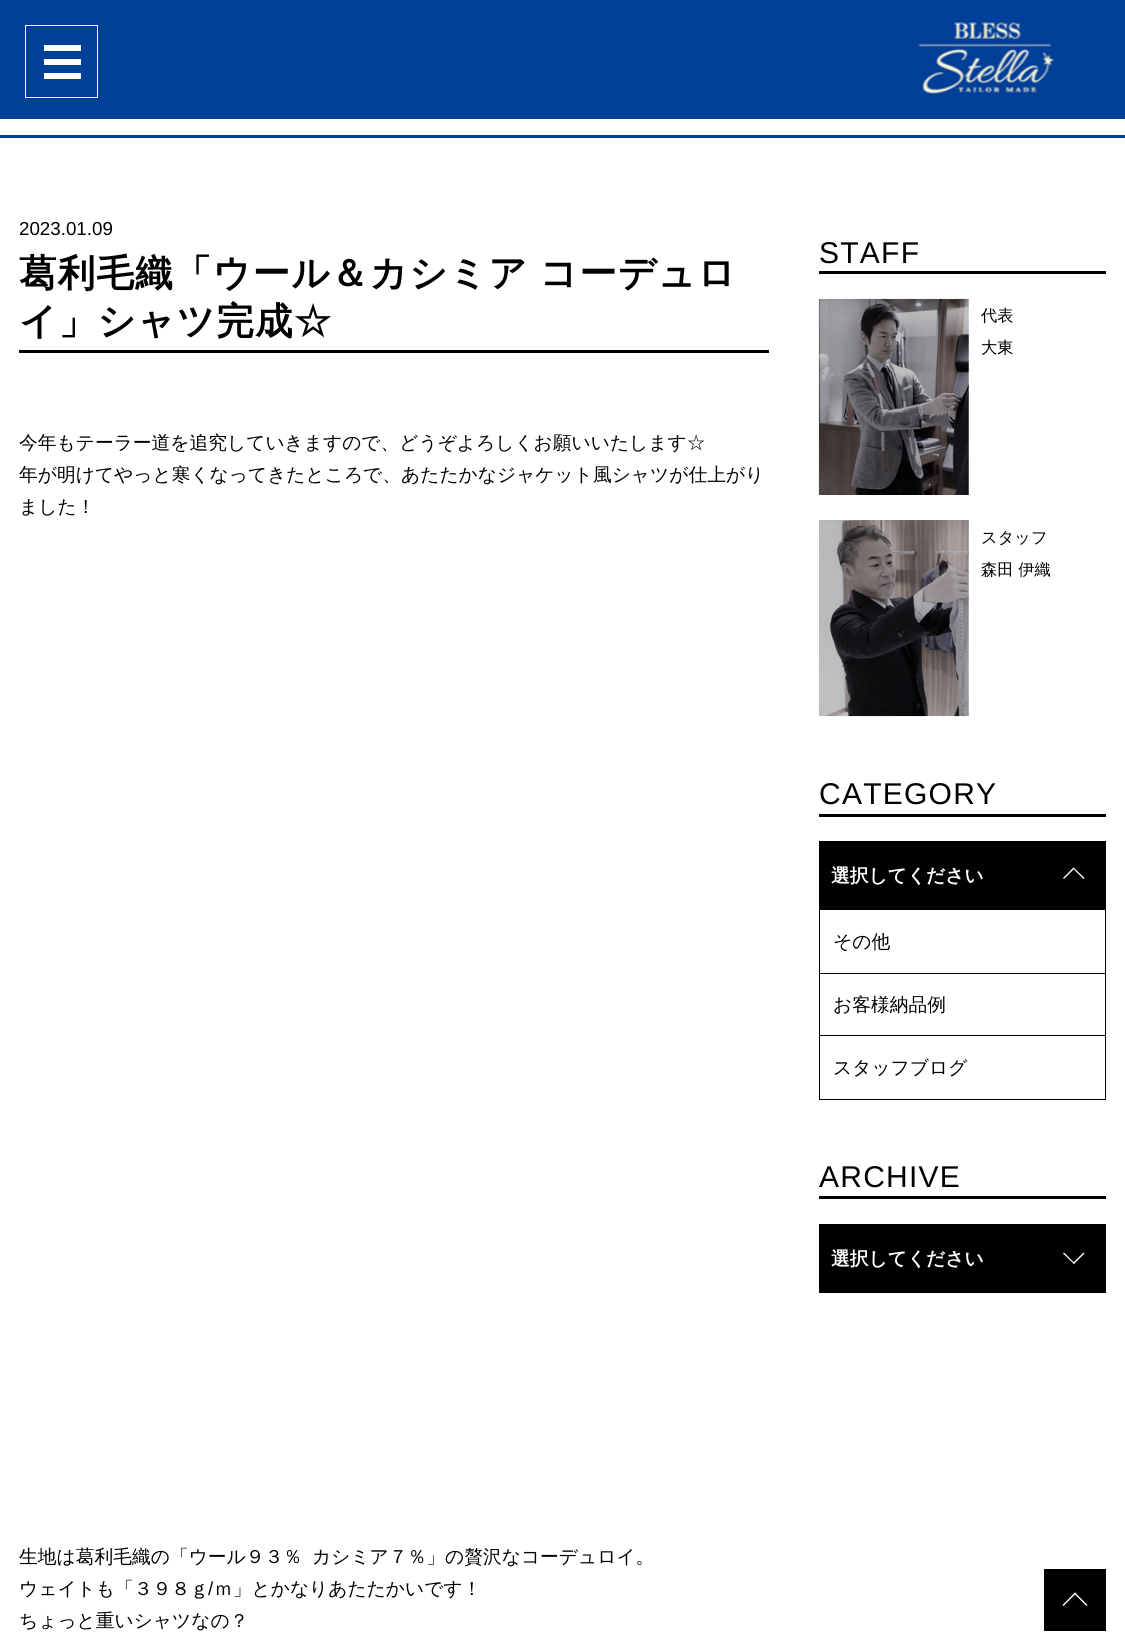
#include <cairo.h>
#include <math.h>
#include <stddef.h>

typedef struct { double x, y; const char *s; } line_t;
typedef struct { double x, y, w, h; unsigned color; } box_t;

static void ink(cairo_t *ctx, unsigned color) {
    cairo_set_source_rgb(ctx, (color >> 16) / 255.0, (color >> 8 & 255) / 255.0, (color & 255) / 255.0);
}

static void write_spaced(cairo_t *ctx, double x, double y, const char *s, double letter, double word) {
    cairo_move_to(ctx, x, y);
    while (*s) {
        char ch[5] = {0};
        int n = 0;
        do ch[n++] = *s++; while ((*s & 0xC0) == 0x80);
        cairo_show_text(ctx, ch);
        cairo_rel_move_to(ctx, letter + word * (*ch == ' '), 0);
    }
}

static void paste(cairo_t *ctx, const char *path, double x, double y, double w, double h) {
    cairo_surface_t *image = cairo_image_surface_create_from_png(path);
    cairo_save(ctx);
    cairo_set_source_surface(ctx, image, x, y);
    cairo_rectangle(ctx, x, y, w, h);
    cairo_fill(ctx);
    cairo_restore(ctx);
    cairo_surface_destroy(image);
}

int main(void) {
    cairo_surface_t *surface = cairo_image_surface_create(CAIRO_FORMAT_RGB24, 1125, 1650);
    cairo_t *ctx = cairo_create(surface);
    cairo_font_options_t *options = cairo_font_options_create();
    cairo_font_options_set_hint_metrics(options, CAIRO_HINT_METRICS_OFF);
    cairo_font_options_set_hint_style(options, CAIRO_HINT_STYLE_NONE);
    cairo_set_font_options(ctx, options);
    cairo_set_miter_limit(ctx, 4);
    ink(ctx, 0xFFFFFF);
    cairo_paint(ctx);
    ink(ctx, 0x004098);
    cairo_rectangle(ctx, 0, 0, 1125, 119);
    cairo_fill(ctx);
    cairo_rectangle(ctx, 25.5, 25.5, 72, 72);
    ink(ctx, 0xFFFFFF);
    cairo_set_line_width(ctx, 1);
    cairo_stroke(ctx);
    {
        static const box_t items[] = {
            {44, 45, 37, 6, 0xFFFFFF},
            {44, 59, 37, 6, 0xFFFFFF},
            {44, 73, 37, 6, 0xFFFFFF},
        };
        for (size_t i = 0; i < sizeof items / sizeof *items; i++) {
            ink(ctx, items[i].color);
            cairo_rectangle(ctx, items[i].x, items[i].y, items[i].w, items[i].h);
            cairo_fill(ctx);
        }
    }
    paste(ctx, "media/1.png", 918, 21, 137, 74);
    ink(ctx, 0x004098);
    cairo_rectangle(ctx, 0, 135, 1125, 3);
    cairo_fill(ctx);
    cairo_select_font_face(ctx, "Liberation Sans", CAIRO_FONT_SLANT_NORMAL, CAIRO_FONT_WEIGHT_NORMAL);
    cairo_set_font_size(ctx, 18.75);
    ink(ctx, 0x000000);
    cairo_move_to(ctx, 19, 235);
    cairo_show_text(ctx, "2023.01.09");
    cairo_rectangle(ctx, 19, 350, 750, 3);
    cairo_fill(ctx);
    cairo_select_font_face(ctx, "WenQuanYi Zen Hei", CAIRO_FONT_SLANT_NORMAL, CAIRO_FONT_WEIGHT_BOLD);
    cairo_set_font_size(ctx, 37.5);
    write_spaced(ctx, 19, 286, "葛利毛織「ウール＆カシミア コーデュロ", 1.25, -1);
    write_spaced(ctx, 19, 334, "イ」シャツ完成☆", 1.25, 0);
    cairo_select_font_face(ctx, "WenQuanYi Zen Hei Medium", CAIRO_FONT_SLANT_NORMAL, CAIRO_FONT_WEIGHT_NORMAL);
    cairo_set_font_size(ctx, 18.75);
    {
        static const line_t items[] = {
            {19, 449, "今年もテーラー道を追究していきますので、どうぞよろしくお願いいたします☆"},
            {19, 481, "年が明けてやっと寒くなってきたところで、あたたかなジャケット風シャツが仕上がり"},
            {19, 513, "ました！"},
            {19, 1563, "生地は葛利毛織の「ウール９３％"},
            {312, 1563, "カシミア７％」の贅沢なコーデュロイ。"},
            {19, 1595, "ウェイトも「３９８ｇ"},
        };
        for (size_t i = 0; i < sizeof items / sizeof *items; i++) {
            cairo_move_to(ctx, items[i].x, items[i].y);
            cairo_show_text(ctx, items[i].s);
        }
    }
    cairo_select_font_face(ctx, "Liberation Sans", CAIRO_FONT_SLANT_NORMAL, CAIRO_FONT_WEIGHT_NORMAL);
    cairo_move_to(ctx, 208, 1595);
    cairo_show_text(ctx, "/");
    cairo_select_font_face(ctx, "WenQuanYi Zen Hei Medium", CAIRO_FONT_SLANT_NORMAL, CAIRO_FONT_WEIGHT_NORMAL);
    cairo_move_to(ctx, 214, 1595);
    cairo_show_text(ctx, "ｍ」とかなりあたたかいです！");
    cairo_move_to(ctx, 19, 1627);
    cairo_show_text(ctx, "ちょっと重いシャツなの？");
    cairo_rectangle(ctx, 819, 271, 287, 3);
    cairo_fill(ctx);
    cairo_select_font_face(ctx, "Liberation Sans", CAIRO_FONT_SLANT_NORMAL, CAIRO_FONT_WEIGHT_NORMAL);
    cairo_set_font_size(ctx, 30);
    write_spaced(ctx, 819, 263, "STAFF", 1.25, 0);
    paste(ctx, "media/2.png", 818, 298, 151, 197);
    cairo_select_font_face(ctx, "WenQuanYi Zen Hei Medium", CAIRO_FONT_SLANT_NORMAL, CAIRO_FONT_WEIGHT_NORMAL);
    cairo_set_font_size(ctx, 16.25);
    cairo_move_to(ctx, 981, 321);
    cairo_show_text(ctx, "代表");
    cairo_move_to(ctx, 981, 353);
    cairo_show_text(ctx, "大東");
    paste(ctx, "media/3.png", 818, 520, 151, 197);
    cairo_move_to(ctx, 981, 543);
    cairo_show_text(ctx, "スタッフ");
    cairo_move_to(ctx, 981, 575);
    cairo_show_text(ctx, "森田 伊織");
    cairo_rectangle(ctx, 819, 814, 287, 3);
    cairo_fill(ctx);
    cairo_select_font_face(ctx, "Liberation Sans", CAIRO_FONT_SLANT_NORMAL, CAIRO_FONT_WEIGHT_NORMAL);
    cairo_set_font_size(ctx, 30);
    write_spaced(ctx, 819, 804, "CATEGORY", 1.25, 0);
    cairo_rectangle(ctx, 819, 841, 287, 69);
    cairo_fill(ctx);
    cairo_select_font_face(ctx, "WenQuanYi Zen Hei", CAIRO_FONT_SLANT_NORMAL, CAIRO_FONT_WEIGHT_BOLD);
    cairo_set_font_size(ctx, 18.75);
    ink(ctx, 0xFFFFFF);
    cairo_move_to(ctx, 831, 882);
    cairo_show_text(ctx, "選択してください");
    cairo_new_path(ctx);
    cairo_move_to(ctx, 1063, 878);
    cairo_line_to(ctx, 1073.5, 867.5);
    cairo_line_to(ctx, 1074.5, 868.5);
    cairo_line_to(ctx, 1064, 879);
    cairo_close_path(ctx);
    cairo_fill(ctx);
    cairo_new_path(ctx);
    cairo_move_to(ctx, 1073, 868.5);
    cairo_line_to(ctx, 1073.5, 867.5);
    cairo_line_to(ctx, 1084.5, 878);
    cairo_line_to(ctx, 1083.5, 879);
    cairo_close_path(ctx);
    cairo_fill(ctx);
    {
        static const box_t items[] = {
            {1105, 910, 1, 190, 0x000000},
            {819, 973, 287, 1, 0x000000},
            {819, 910, 1, 64, 0x000000},
        };
        for (size_t i = 0; i < sizeof items / sizeof *items; i++) {
            ink(ctx, items[i].color);
            cairo_rectangle(ctx, items[i].x, items[i].y, items[i].w, items[i].h);
            cairo_fill(ctx);
        }
    }
    cairo_select_font_face(ctx, "WenQuanYi Zen Hei Medium", CAIRO_FONT_SLANT_NORMAL, CAIRO_FONT_WEIGHT_NORMAL);
    cairo_move_to(ctx, 833, 948);
    cairo_show_text(ctx, "その他");
    cairo_rectangle(ctx, 819, 1035, 287, 1);
    cairo_fill(ctx);
    cairo_rectangle(ctx, 819, 974, 1, 62);
    cairo_fill(ctx);
    cairo_move_to(ctx, 833, 1011);
    cairo_show_text(ctx, "お客様納品例");
    cairo_rectangle(ctx, 819, 1099, 287, 1);
    cairo_fill(ctx);
    cairo_rectangle(ctx, 819, 1036, 1, 64);
    cairo_fill(ctx);
    cairo_move_to(ctx, 833, 1074);
    cairo_show_text(ctx, "スタッフブログ");
    cairo_rectangle(ctx, 819, 1196, 287, 3);
    cairo_fill(ctx);
    cairo_select_font_face(ctx, "Liberation Sans", CAIRO_FONT_SLANT_NORMAL, CAIRO_FONT_WEIGHT_NORMAL);
    cairo_set_font_size(ctx, 30);
    write_spaced(ctx, 819, 1187, "ARCHIVE", 1.25, 0);
    cairo_rectangle(ctx, 819, 1224, 287, 69);
    cairo_fill(ctx);
    cairo_select_font_face(ctx, "WenQuanYi Zen Hei", CAIRO_FONT_SLANT_NORMAL, CAIRO_FONT_WEIGHT_BOLD);
    cairo_set_font_size(ctx, 18.75);
    ink(ctx, 0xFFFFFF);
    cairo_move_to(ctx, 831, 1265);
    cairo_show_text(ctx, "選択してください");
    cairo_new_path(ctx);
    cairo_move_to(ctx, 1084.5, 1253.5);
    cairo_line_to(ctx, 1074, 1264);
    cairo_line_to(ctx, 1073, 1263);
    cairo_line_to(ctx, 1083.5, 1252.5);
    cairo_close_path(ctx);
    cairo_fill(ctx);
    cairo_new_path(ctx);
    cairo_move_to(ctx, 1074.5, 1263);
    cairo_line_to(ctx, 1074, 1264);
    cairo_line_to(ctx, 1063, 1253.5);
    cairo_line_to(ctx, 1064, 1252.5);
    cairo_close_path(ctx);
    cairo_fill(ctx);
    ink(ctx, 0x000000);
    cairo_rectangle(ctx, 1044, 1569, 62, 62);
    cairo_fill(ctx);
    ink(ctx, 0xFFFFFF);
    cairo_new_path(ctx);
    cairo_move_to(ctx, 1062.5, 1605);
    cairo_line_to(ctx, 1075, 1592.5);
    cairo_line_to(ctx, 1076, 1593.5);
    cairo_line_to(ctx, 1063.5, 1606);
    cairo_close_path(ctx);
    cairo_fill(ctx);
    cairo_new_path(ctx);
    cairo_move_to(ctx, 1074, 1593.5);
    cairo_line_to(ctx, 1075, 1592.5);
    cairo_line_to(ctx, 1087.5, 1605);
    cairo_line_to(ctx, 1086.5, 1606);
    cairo_close_path(ctx);
    cairo_fill(ctx);
    cairo_surface_write_to_png(surface, "image.png");
    cairo_font_options_destroy(options);
    cairo_destroy(ctx);
    cairo_surface_destroy(surface);
    return 0;
}
